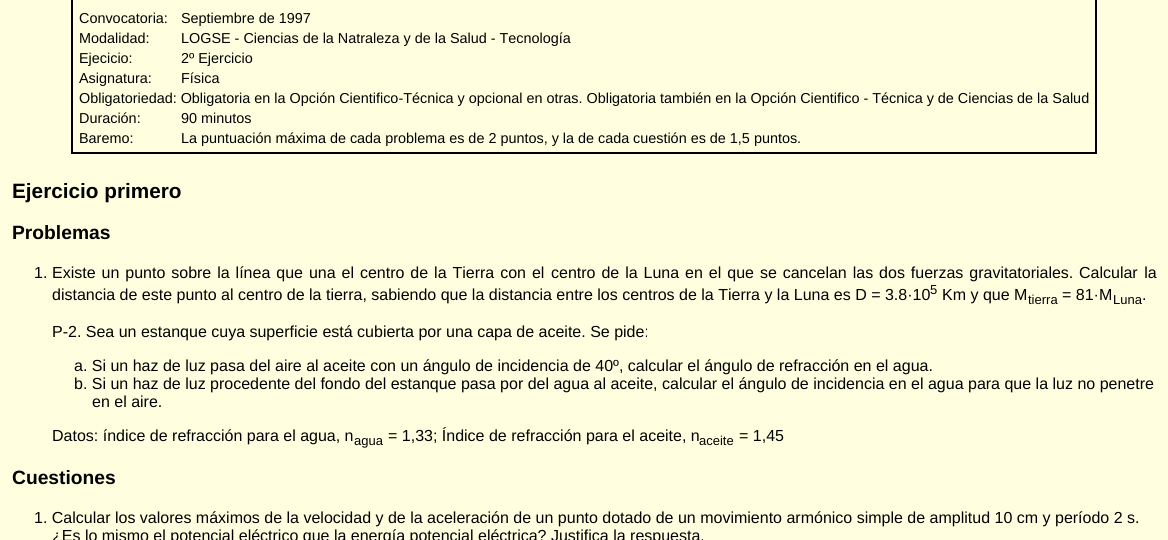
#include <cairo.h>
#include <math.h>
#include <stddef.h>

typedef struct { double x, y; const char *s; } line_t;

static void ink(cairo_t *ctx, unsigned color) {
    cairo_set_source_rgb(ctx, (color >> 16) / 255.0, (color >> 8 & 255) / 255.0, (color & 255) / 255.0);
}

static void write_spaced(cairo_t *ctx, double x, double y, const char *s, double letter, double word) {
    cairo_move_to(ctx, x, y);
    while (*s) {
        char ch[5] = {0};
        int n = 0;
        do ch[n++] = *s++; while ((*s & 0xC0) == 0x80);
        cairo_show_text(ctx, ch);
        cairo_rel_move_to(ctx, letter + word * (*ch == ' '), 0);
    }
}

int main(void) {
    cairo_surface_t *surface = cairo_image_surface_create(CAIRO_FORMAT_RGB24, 1168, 540);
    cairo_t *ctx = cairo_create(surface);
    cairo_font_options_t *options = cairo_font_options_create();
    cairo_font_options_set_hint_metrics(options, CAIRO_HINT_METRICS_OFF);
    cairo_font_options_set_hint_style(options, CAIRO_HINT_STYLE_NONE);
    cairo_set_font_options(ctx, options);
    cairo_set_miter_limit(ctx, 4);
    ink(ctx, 0xFFFFE0);
    cairo_paint(ctx);
    cairo_rectangle(ctx, 72, -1, 1024, 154);
    ink(ctx, 0x000000);
    cairo_stroke(ctx);
    cairo_select_font_face(ctx, "Liberation Sans", CAIRO_FONT_SLANT_NORMAL, CAIRO_FONT_WEIGHT_NORMAL);
    cairo_set_font_size(ctx, 14.4);
    {
        static const line_t items[] = {
            {79, 23, "Convocatoria:"},
            {181, 23, "Septiembre de 1997"},
            {79, 43, "Modalidad:"},
            {181, 43, "LOGSE - Ciencias de la Natraleza y de la Salud - Tecnología"},
            {79, 63, "Ejecicio:"},
            {181, 63, "2º Ejercicio"},
            {79, 83, "Asignatura:"},
            {181, 83, "Física"},
            {79, 103, "Obligatoriedad: Obligatoria en la Opción Cientifico-Técnica y opcional en otras. Obligatoria también en la Opción Cientifico - Técnica y de Ciencias de la Salud"},
            {79, 123, "Duración:"},
            {181, 123, "90 minutos"},
            {79, 143, "Baremo:"},
            {181, 143, "La puntuación máxima de cada problema es de 2 puntos, y la de cada"},
            {633, 143, "cuestión es de 1,5 puntos."},
        };
        for (size_t i = 0; i < sizeof items / sizeof *items; i++) {
            cairo_move_to(ctx, items[i].x, items[i].y);
            cairo_show_text(ctx, items[i].s);
        }
    }
    cairo_select_font_face(ctx, "Liberation Sans", CAIRO_FONT_SLANT_NORMAL, CAIRO_FONT_WEIGHT_BOLD);
    cairo_set_font_size(ctx, 20.75);
    cairo_move_to(ctx, 12, 198);
    cairo_show_text(ctx, "Ejercicio primero");
    cairo_set_font_size(ctx, 19.25);
    cairo_move_to(ctx, 12, 239);
    cairo_show_text(ctx, "Problemas");
    cairo_select_font_face(ctx, "Liberation Sans", CAIRO_FONT_SLANT_NORMAL, CAIRO_FONT_WEIGHT_NORMAL);
    cairo_set_font_size(ctx, 16);
    cairo_move_to(ctx, 34, 278);
    cairo_show_text(ctx, "1.");
    write_spaced(ctx, 52, 278, "Existe un punto sobre la línea que una el centro de la Tierra con el", 0, 1.5);
    write_spaced(ctx, 551, 278, "centro de la Luna en el que se cancelan las dos fuerzas gravitatoriales.", 0, 1.5);
    write_spaced(ctx, 1079, 278, "Calcular la", 0, 2);
    cairo_move_to(ctx, 52, 300);
    cairo_show_text(ctx, "distancia de este punto al centro de la tierra, sabiendo que la distancia entre los centros de la Tierra y la Luna es D = 3.8·10");
    cairo_set_font_size(ctx, 13);
    cairo_move_to(ctx, 930, 294);
    cairo_show_text(ctx, "5");
    cairo_set_font_size(ctx, 16);
    cairo_move_to(ctx, 942, 300);
    cairo_show_text(ctx, "Km y que M");
    cairo_set_font_size(ctx, 13);
    cairo_move_to(ctx, 1028, 304);
    cairo_show_text(ctx, "tierra");
    cairo_set_font_size(ctx, 16);
    cairo_move_to(ctx, 1062, 300);
    cairo_show_text(ctx, "= 81·M");
    cairo_set_font_size(ctx, 13);
    cairo_move_to(ctx, 1113, 304);
    cairo_show_text(ctx, "Luna");
    cairo_set_font_size(ctx, 16);
    {
        static const line_t items[] = {
            {1142, 300, "."},
            {52, 337, "P-2. Sea un estanque cuya superficie está cubierta por una capa de aceite. Se pide:"},
            {74, 371, "a. Si un haz de luz pasa del aire al aceite con un ángulo de incidencia de 40º, calcular el ángulo de refracción en el agua."},
            {74, 389, "b. Si un haz de luz procedente del fondo del estanque pasa por del agua al aceite, calcular el ángulo de incidencia en el agua para que la luz no penetre"},
            {92, 407, "en el aire."},
            {52, 441, "Datos: índice de refracción para el agua, n"},
        };
        for (size_t i = 0; i < sizeof items / sizeof *items; i++) {
            cairo_move_to(ctx, items[i].x, items[i].y);
            cairo_show_text(ctx, items[i].s);
        }
    }
    cairo_set_font_size(ctx, 13);
    cairo_move_to(ctx, 354, 445);
    cairo_show_text(ctx, "agua");
    cairo_set_font_size(ctx, 16);
    cairo_move_to(ctx, 388, 441);
    cairo_show_text(ctx, "= 1,33; Índice de refracción para el aceite, n");
    cairo_set_font_size(ctx, 13);
    cairo_move_to(ctx, 699, 445);
    cairo_show_text(ctx, "aceite");
    cairo_set_font_size(ctx, 16);
    cairo_move_to(ctx, 739, 441);
    cairo_show_text(ctx, "= 1,45");
    cairo_select_font_face(ctx, "Liberation Sans", CAIRO_FONT_SLANT_NORMAL, CAIRO_FONT_WEIGHT_BOLD);
    cairo_set_font_size(ctx, 19.25);
    cairo_move_to(ctx, 12, 484);
    cairo_show_text(ctx, "Cuestiones");
    cairo_select_font_face(ctx, "Liberation Sans", CAIRO_FONT_SLANT_NORMAL, CAIRO_FONT_WEIGHT_NORMAL);
    cairo_set_font_size(ctx, 16);
    cairo_move_to(ctx, 34, 523);
    cairo_show_text(ctx, "1. Calcular los valores máximos de la velocidad y de la aceleración de un punto dotado de un movimiento armónico simple de amplitud 10 cm y período 2 s.");
    cairo_move_to(ctx, 52, 541);
    cairo_show_text(ctx, "¿Es lo mismo el potencial eléctrico que la energía potencial eléctrica? Justifica la respuesta.");
    cairo_surface_write_to_png(surface, "image.png");
    cairo_font_options_destroy(options);
    cairo_destroy(ctx);
    cairo_surface_destroy(surface);
    return 0;
}
